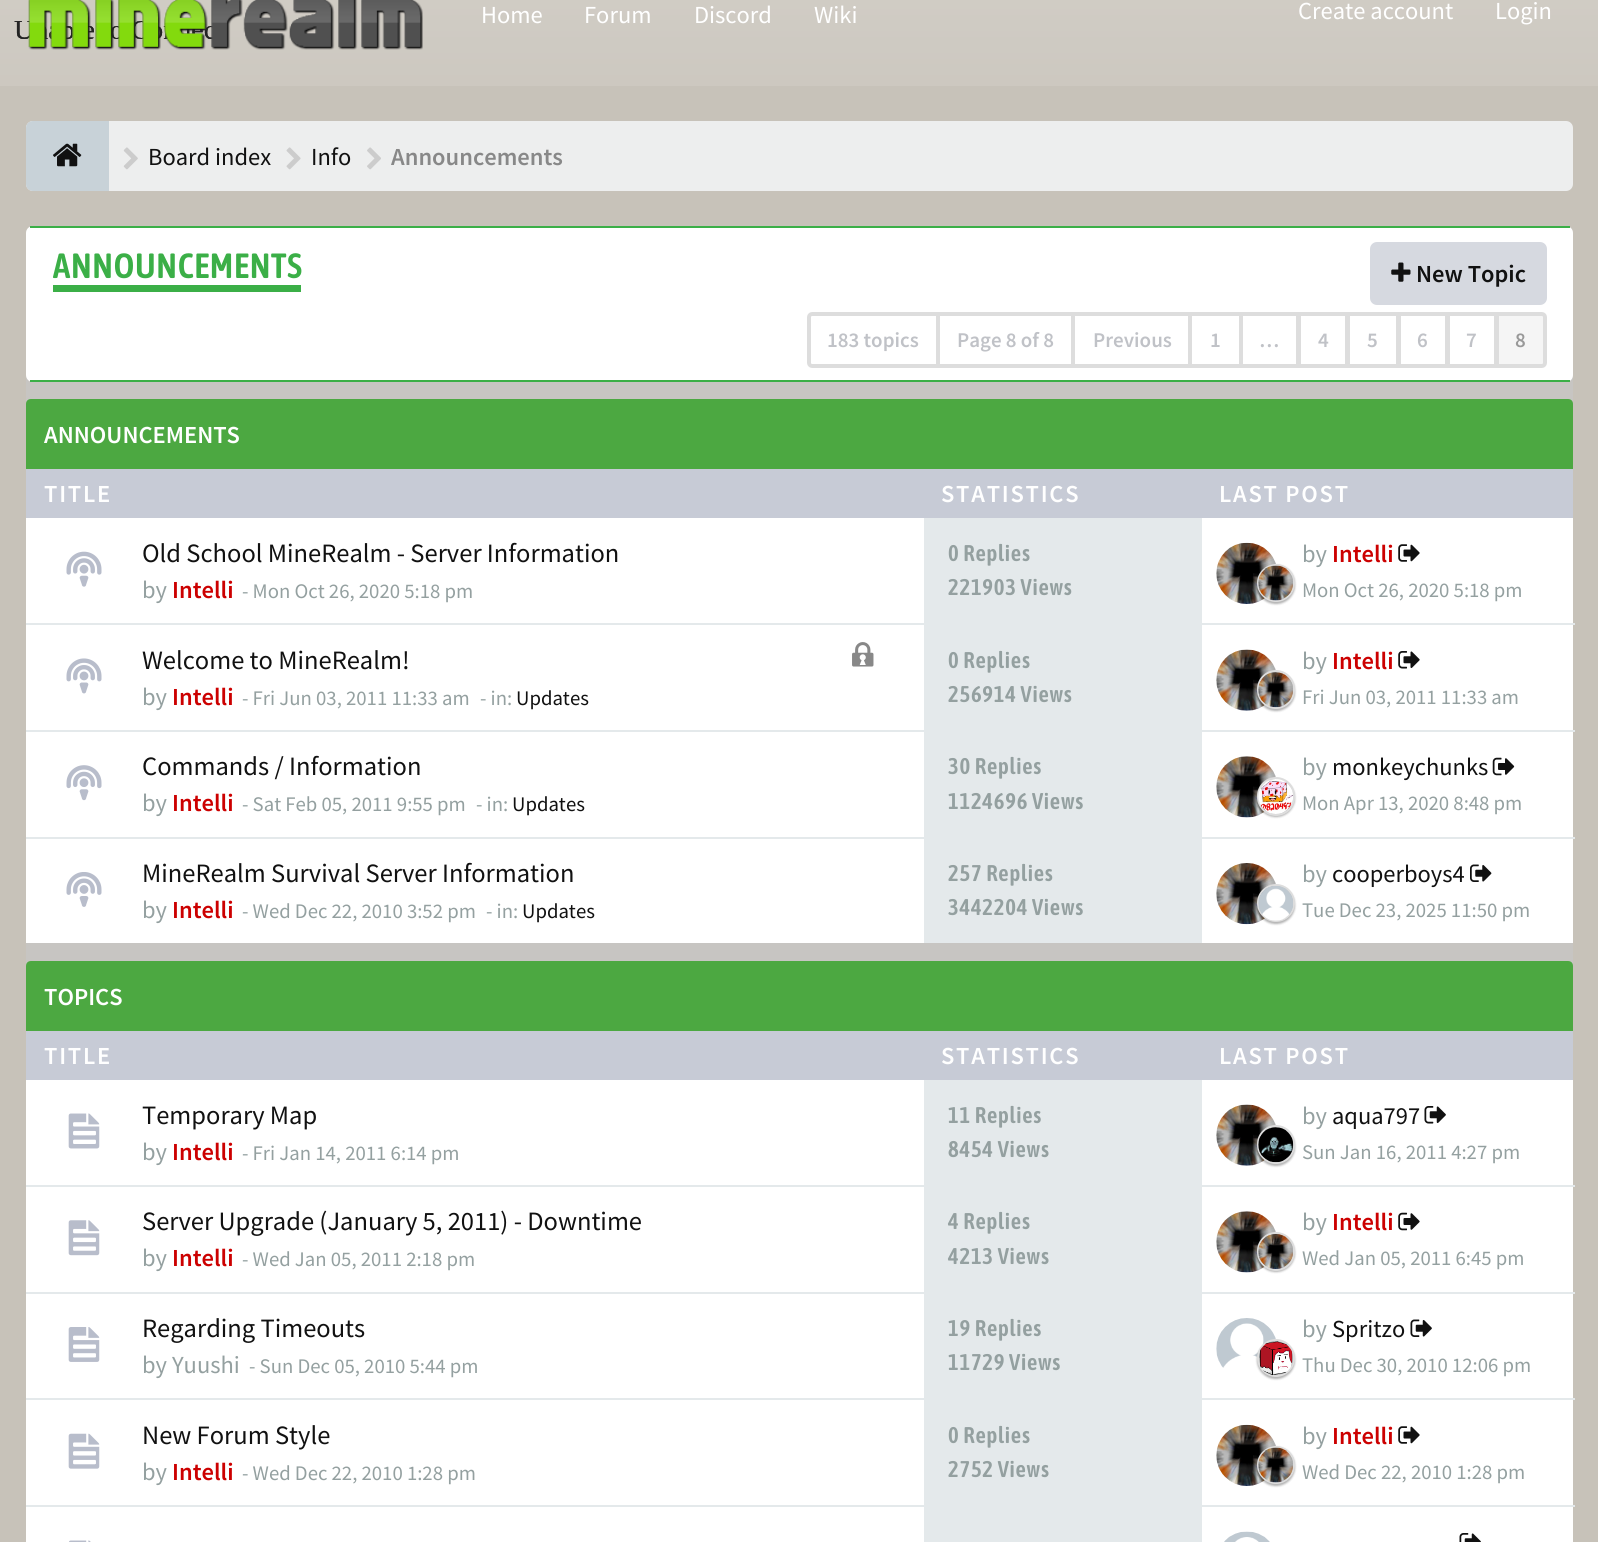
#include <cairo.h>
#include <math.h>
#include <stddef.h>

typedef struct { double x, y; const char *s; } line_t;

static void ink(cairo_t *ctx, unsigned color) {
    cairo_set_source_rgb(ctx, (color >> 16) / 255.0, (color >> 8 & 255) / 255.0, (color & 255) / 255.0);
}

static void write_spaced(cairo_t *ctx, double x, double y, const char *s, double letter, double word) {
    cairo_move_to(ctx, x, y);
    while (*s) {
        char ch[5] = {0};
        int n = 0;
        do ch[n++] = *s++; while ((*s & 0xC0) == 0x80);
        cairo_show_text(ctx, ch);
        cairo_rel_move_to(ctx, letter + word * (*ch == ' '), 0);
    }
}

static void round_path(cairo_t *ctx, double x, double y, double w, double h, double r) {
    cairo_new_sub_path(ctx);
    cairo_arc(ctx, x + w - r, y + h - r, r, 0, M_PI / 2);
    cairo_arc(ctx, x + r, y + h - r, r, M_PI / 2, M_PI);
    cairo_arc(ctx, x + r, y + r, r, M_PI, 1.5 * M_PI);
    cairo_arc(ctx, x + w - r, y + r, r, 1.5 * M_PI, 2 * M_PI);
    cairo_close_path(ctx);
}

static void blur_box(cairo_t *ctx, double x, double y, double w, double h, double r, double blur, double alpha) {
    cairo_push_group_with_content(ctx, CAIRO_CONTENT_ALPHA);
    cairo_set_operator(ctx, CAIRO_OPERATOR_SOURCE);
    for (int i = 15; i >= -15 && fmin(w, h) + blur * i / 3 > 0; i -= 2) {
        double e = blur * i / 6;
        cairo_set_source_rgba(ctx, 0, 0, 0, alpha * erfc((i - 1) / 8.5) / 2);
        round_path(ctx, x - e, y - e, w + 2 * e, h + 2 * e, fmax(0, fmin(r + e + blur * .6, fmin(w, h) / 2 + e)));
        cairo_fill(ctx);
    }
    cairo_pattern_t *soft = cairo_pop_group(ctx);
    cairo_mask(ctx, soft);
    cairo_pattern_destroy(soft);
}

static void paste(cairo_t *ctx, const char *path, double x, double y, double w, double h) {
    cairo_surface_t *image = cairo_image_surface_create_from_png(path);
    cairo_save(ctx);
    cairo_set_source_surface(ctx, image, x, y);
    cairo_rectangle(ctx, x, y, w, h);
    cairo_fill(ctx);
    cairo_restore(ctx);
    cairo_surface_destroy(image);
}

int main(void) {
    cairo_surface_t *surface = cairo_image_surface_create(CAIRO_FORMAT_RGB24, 1598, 1542);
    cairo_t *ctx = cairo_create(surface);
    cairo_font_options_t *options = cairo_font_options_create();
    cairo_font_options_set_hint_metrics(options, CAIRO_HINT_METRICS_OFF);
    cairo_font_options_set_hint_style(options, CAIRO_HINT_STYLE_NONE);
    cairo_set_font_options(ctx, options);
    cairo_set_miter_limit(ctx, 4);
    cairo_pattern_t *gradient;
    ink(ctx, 0xC7C2B9);
    cairo_paint(ctx);
    paste(ctx, "media/2.png", 14, 21, 199, 18);
    paste(ctx, "media/3.png", 14, 21, 199, 18);
    gradient = cairo_pattern_create_linear(800, 86, 800, -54);
    cairo_pattern_add_color_stop_rgba(gradient, 0, 1, 1, 1, 0.1);
    cairo_pattern_add_color_stop_rgba(gradient, 1, 1, 1, 1, 0.2);
    cairo_set_source(ctx, gradient);
    cairo_pattern_destroy(gradient);
    cairo_rectangle(ctx, 0, 0, 1598, 86);
    cairo_fill(ctx);
    paste(ctx, "media/1.png", 28, 0, 395, 50);
    cairo_select_font_face(ctx, "Source Sans Pro", CAIRO_FONT_SLANT_NORMAL, CAIRO_FONT_WEIGHT_NORMAL);
    cairo_set_font_size(ctx, 24.5);
    ink(ctx, 0xFFFFFF);
    {
        static const line_t items[] = {
            {481, 23, "Home"},
            {584, 23, "Forum"},
            {694, 23, "Discord"},
            {814, 23, "Wiki"},
            {1298, 19, "Create account"},
            {1495, 19, "Login"},
        };
        for (size_t i = 0; i < sizeof items / sizeof *items; i++) {
            cairo_move_to(ctx, items[i].x, items[i].y);
            cairo_show_text(ctx, items[i].s);
        }
    }
    ink(ctx, 0xEDEEEE);
    round_path(ctx, 26, 121, 1547, 70, 7);
    cairo_fill(ctx);
    ink(ctx, 0xC8D2D8);
    cairo_new_path(ctx);
    cairo_move_to(ctx, 33, 121);
    cairo_line_to(ctx, 109, 121);
    cairo_line_to(ctx, 109, 191);
    cairo_line_to(ctx, 33, 191);
    cairo_curve_to(ctx, 29, 191, 26, 188, 26, 184);
    cairo_line_to(ctx, 26, 128);
    cairo_curve_to(ctx, 26, 124, 29, 121, 33, 121);
    cairo_close_path(ctx);
    cairo_fill(ctx);
    paste(ctx, "media/4.png", 53, 143, 29, 24);
    paste(ctx, "media/5.png", 123, 147, 15, 23);
    ink(ctx, 0x111111);
    cairo_move_to(ctx, 148, 165);
    cairo_show_text(ctx, "Board index");
    paste(ctx, "media/6.png", 286, 147, 15, 23);
    cairo_move_to(ctx, 311, 165);
    cairo_show_text(ctx, "Info");
    paste(ctx, "media/7.png", 367, 147, 14, 23);
    cairo_select_font_face(ctx, "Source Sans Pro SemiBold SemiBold", CAIRO_FONT_SLANT_NORMAL, CAIRO_FONT_WEIGHT_NORMAL);
    ink(ctx, 0x888888);
    cairo_move_to(ctx, 391, 165);
    cairo_show_text(ctx, "Announcements");
    ink(ctx, 0xC7C5C2);
    round_path(ctx, 26, 226, 1547, 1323, 7);
    cairo_fill(ctx);
    ink(ctx, 0xFFFFFF);
    round_path(ctx, 26, 226, 1547, 79, 7);
    cairo_fill(ctx);
    ink(ctx, 0x3BAF47);
    cairo_rectangle(ctx, 30, 226, 1540, 2);
    cairo_fill(ctx);
    cairo_select_font_face(ctx, "Asap Condensed SemiBold", CAIRO_FONT_SLANT_NORMAL, CAIRO_FONT_WEIGHT_NORMAL);
    cairo_set_font_size(ctx, 35);
    write_spaced(ctx, 53, 278, "ANNOUNCEMENTS", 0.75, 0);
    cairo_rectangle(ctx, 53, 285, 248, 7);
    cairo_fill(ctx);
    ink(ctx, 0xFFFFFF);
    cairo_new_path(ctx);
    cairo_move_to(ctx, 26, 292);
    cairo_line_to(ctx, 1573, 292);
    cairo_line_to(ctx, 1573, 375);
    cairo_curve_to(ctx, 1573, 379, 1570, 382, 1566, 382);
    cairo_line_to(ctx, 33, 382);
    cairo_curve_to(ctx, 29, 382, 26, 379, 26, 375);
    cairo_close_path(ctx);
    cairo_fill(ctx);
    ink(ctx, 0xD6D9E0);
    round_path(ctx, 1370, 242, 177, 63, 7);
    cairo_fill(ctx);
    paste(ctx, "media/8.png", 1391, 262, 20, 20);
    cairo_select_font_face(ctx, "Source Sans Pro SemiBold SemiBold", CAIRO_FONT_SLANT_NORMAL, CAIRO_FONT_WEIGHT_NORMAL);
    cairo_set_font_size(ctx, 24.5);
    ink(ctx, 0x111111);
    cairo_move_to(ctx, 1416, 282);
    cairo_show_text(ctx, "New Topic");
    ink(ctx, 0x3BAF47);
    cairo_rectangle(ctx, 30, 380, 1540, 2);
    cairo_fill(ctx);
    cairo_new_path(ctx);
    cairo_move_to(ctx, 812, 314);
    cairo_line_to(ctx, 938, 314);
    cairo_line_to(ctx, 938, 366);
    cairo_line_to(ctx, 812, 366);
    cairo_curve_to(ctx, 810.5, 366, 809, 364.5, 809, 363);
    cairo_line_to(ctx, 809, 317);
    cairo_curve_to(ctx, 809, 315.5, 810.5, 314, 812, 314);
    cairo_close_path(ctx);
    ink(ctx, 0xDDDDDD);
    cairo_set_line_width(ctx, 4);
    cairo_stroke(ctx);
    cairo_set_font_size(ctx, 21);
    ink(ctx, 0xC0C2C7);
    cairo_move_to(ctx, 827, 347);
    cairo_show_text(ctx, "183 topics");
    cairo_rectangle(ctx, 938, 314, 135, 52);
    ink(ctx, 0xDDDDDD);
    cairo_stroke(ctx);
    ink(ctx, 0xC0C2C7);
    cairo_move_to(ctx, 957, 347);
    cairo_show_text(ctx, "Page 8 of 8");
    cairo_rectangle(ctx, 1073, 314, 117, 52);
    ink(ctx, 0xDDDDDD);
    cairo_stroke(ctx);
    ink(ctx, 0xC0C2C7);
    cairo_move_to(ctx, 1093, 347);
    cairo_show_text(ctx, "Previous");
    cairo_rectangle(ctx, 1190, 314, 51, 52);
    ink(ctx, 0xDDDDDD);
    cairo_stroke(ctx);
    ink(ctx, 0xC0C2C7);
    cairo_move_to(ctx, 1210, 347);
    cairo_show_text(ctx, "1");
    cairo_rectangle(ctx, 1241, 314, 57, 52);
    ink(ctx, 0xDDDDDD);
    cairo_stroke(ctx);
    ink(ctx, 0xC0C2C7);
    cairo_move_to(ctx, 1259, 347);
    cairo_show_text(ctx, "…");
    cairo_rectangle(ctx, 1299, 314, 48, 52);
    ink(ctx, 0xDDDDDD);
    cairo_stroke(ctx);
    ink(ctx, 0xC0C2C7);
    cairo_move_to(ctx, 1318, 347);
    cairo_show_text(ctx, "4");
    cairo_rectangle(ctx, 1348, 314, 50, 52);
    ink(ctx, 0xDDDDDD);
    cairo_stroke(ctx);
    ink(ctx, 0xC0C2C7);
    cairo_move_to(ctx, 1367, 347);
    cairo_show_text(ctx, "5");
    cairo_rectangle(ctx, 1399, 314, 48, 52);
    ink(ctx, 0xDDDDDD);
    cairo_stroke(ctx);
    ink(ctx, 0xC0C2C7);
    cairo_move_to(ctx, 1417, 347);
    cairo_show_text(ctx, "6");
    cairo_rectangle(ctx, 1448, 314, 48, 52);
    ink(ctx, 0xDDDDDD);
    cairo_stroke(ctx);
    ink(ctx, 0xC0C2C7);
    cairo_move_to(ctx, 1466, 347);
    cairo_show_text(ctx, "7");
    ink(ctx, 0xF5F5F5);
    cairo_new_path(ctx);
    cairo_move_to(ctx, 1497, 314);
    cairo_line_to(ctx, 1542, 314);
    cairo_curve_to(ctx, 1543.5, 314, 1545, 315.5, 1545, 317);
    cairo_line_to(ctx, 1545, 363);
    cairo_curve_to(ctx, 1545, 364.5, 1543.5, 366, 1542, 366);
    cairo_line_to(ctx, 1497, 366);
    cairo_close_path(ctx);
    cairo_fill_preserve(ctx);
    ink(ctx, 0xDDDDDD);
    cairo_stroke(ctx);
    ink(ctx, 0x999999);
    cairo_move_to(ctx, 1515, 347);
    cairo_show_text(ctx, "8");
    ink(ctx, 0x4CA841);
    cairo_new_path(ctx);
    cairo_move_to(ctx, 31, 399);
    cairo_line_to(ctx, 1568, 399);
    cairo_curve_to(ctx, 1571, 399, 1573, 401, 1573, 404);
    cairo_line_to(ctx, 1573, 469);
    cairo_line_to(ctx, 26, 469);
    cairo_line_to(ctx, 26, 404);
    cairo_curve_to(ctx, 26, 401, 28, 399, 31, 399);
    cairo_close_path(ctx);
    cairo_fill(ctx);
    cairo_set_font_size(ctx, 24.5);
    ink(ctx, 0xFFFFFF);
    cairo_move_to(ctx, 44, 443);
    cairo_show_text(ctx, "ANNOUNCEMENTS");
    cairo_rectangle(ctx, 26, 625, 1547, 318);
    cairo_fill(ctx);
    ink(ctx, 0xC7CBD6);
    cairo_rectangle(ctx, 26, 469, 1547, 49);
    cairo_fill(ctx);
    ink(ctx, 0xFFFFFF);
    {
        static const line_t items[] = {
            {44, 502, "TITLE"},
            {941, 502, "STATISTICS"},
            {1219, 502, "LAST POST"},
        };
        for (size_t i = 0; i < sizeof items / sizeof *items; i++) {
            write_spaced(ctx, items[i].x, items[i].y, items[i].s, 1.75, 0);
        }
    }
    cairo_rectangle(ctx, 26, 518, 898, 105);
    cairo_fill(ctx);
    paste(ctx, "media/9.png", 66, 551, 36, 36);
    cairo_select_font_face(ctx, "Source Sans Pro", CAIRO_FONT_SLANT_NORMAL, CAIRO_FONT_WEIGHT_NORMAL);
    cairo_set_font_size(ctx, 26.5);
    ink(ctx, 0x111111);
    cairo_move_to(ctx, 142, 562);
    cairo_show_text(ctx, "Old School MineRealm - Server Information");
    cairo_set_font_size(ctx, 24.5);
    ink(ctx, 0x94A0A0);
    cairo_move_to(ctx, 142, 598);
    cairo_show_text(ctx, "by");
    cairo_select_font_face(ctx, "Source Sans Pro SemiBold SemiBold", CAIRO_FONT_SLANT_NORMAL, CAIRO_FONT_WEIGHT_NORMAL);
    ink(ctx, 0xCC0000);
    cairo_move_to(ctx, 172, 598);
    cairo_show_text(ctx, "Intelli");
    cairo_select_font_face(ctx, "Source Sans Pro", CAIRO_FONT_SLANT_NORMAL, CAIRO_FONT_WEIGHT_NORMAL);
    cairo_set_font_size(ctx, 20.75);
    ink(ctx, 0x94A0A0);
    cairo_move_to(ctx, 242, 598);
    cairo_show_text(ctx, "- Mon Oct 26, 2020 5:18 pm");
    ink(ctx, 0xE4E9EB);
    cairo_rectangle(ctx, 924, 518, 278, 105);
    cairo_fill(ctx);
    cairo_select_font_face(ctx, "Asap Condensed SemiBold", CAIRO_FONT_SLANT_NORMAL, CAIRO_FONT_WEIGHT_NORMAL);
    cairo_set_font_size(ctx, 22.75);
    ink(ctx, 0x94A0A0);
    write_spaced(ctx, 948, 561, "0 Replies", 0.75, 0);
    write_spaced(ctx, 948, 595, "221903 Views", 0.75, 0);
    ink(ctx, 0xFFFFFF);
    cairo_rectangle(ctx, 1202, 518, 371, 105);
    cairo_fill(ctx);
    paste(ctx, "media/10.png", 1216, 542, 61, 62);
    ink(ctx, 0x000000);
    blur_box(ctx, 1257, 565, 38, 39, 19, 1, 0.3);
    cairo_arc(ctx, 1276, 583, 18, 0, 2 * M_PI);
    ink(ctx, 0xDDDDDD);
    cairo_set_line_width(ctx, 2);
    cairo_stroke(ctx);
    paste(ctx, "media/11.png", 1258, 565, 35, 36);
    cairo_select_font_face(ctx, "Source Sans Pro", CAIRO_FONT_SLANT_NORMAL, CAIRO_FONT_WEIGHT_NORMAL);
    cairo_set_font_size(ctx, 24.5);
    ink(ctx, 0x94A0A0);
    cairo_move_to(ctx, 1302, 562);
    cairo_show_text(ctx, "by");
    cairo_select_font_face(ctx, "Source Sans Pro SemiBold SemiBold", CAIRO_FONT_SLANT_NORMAL, CAIRO_FONT_WEIGHT_NORMAL);
    ink(ctx, 0xCC0000);
    cairo_move_to(ctx, 1332, 562);
    cairo_show_text(ctx, "Intelli");
    paste(ctx, "media/12.png", 1398, 544, 22, 18);
    cairo_select_font_face(ctx, "Source Sans Pro", CAIRO_FONT_SLANT_NORMAL, CAIRO_FONT_WEIGHT_NORMAL);
    cairo_set_font_size(ctx, 20.75);
    ink(ctx, 0x94A0A0);
    cairo_move_to(ctx, 1302, 597);
    cairo_show_text(ctx, "Mon Oct 26, 2020 5:18 pm");
    paste(ctx, "media/13.png", 66, 658, 36, 36);
    cairo_set_font_size(ctx, 26.5);
    ink(ctx, 0x111111);
    cairo_move_to(ctx, 142, 669);
    cairo_show_text(ctx, "Welcome to MineRealm!");
    cairo_set_font_size(ctx, 24.5);
    ink(ctx, 0x94A0A0);
    cairo_move_to(ctx, 142, 705);
    cairo_show_text(ctx, "by");
    cairo_select_font_face(ctx, "Source Sans Pro SemiBold SemiBold", CAIRO_FONT_SLANT_NORMAL, CAIRO_FONT_WEIGHT_NORMAL);
    ink(ctx, 0xCC0000);
    cairo_move_to(ctx, 172, 705);
    cairo_show_text(ctx, "Intelli");
    cairo_select_font_face(ctx, "Source Sans Pro", CAIRO_FONT_SLANT_NORMAL, CAIRO_FONT_WEIGHT_NORMAL);
    cairo_set_font_size(ctx, 20.75);
    ink(ctx, 0x94A0A0);
    cairo_move_to(ctx, 242, 705);
    cairo_show_text(ctx, "- Fri Jun 03, 2011 11:33 am");
    cairo_move_to(ctx, 480, 705);
    cairo_show_text(ctx, "- in:");
    ink(ctx, 0x111111);
    cairo_move_to(ctx, 516, 705);
    cairo_show_text(ctx, "Updates");
    paste(ctx, "media/14.png", 852, 642, 22, 25);
    ink(ctx, 0xE4E9EB);
    cairo_rectangle(ctx, 924, 625, 278, 105);
    cairo_fill(ctx);
    cairo_select_font_face(ctx, "Asap Condensed SemiBold", CAIRO_FONT_SLANT_NORMAL, CAIRO_FONT_WEIGHT_NORMAL);
    cairo_set_font_size(ctx, 22.75);
    ink(ctx, 0x94A0A0);
    write_spaced(ctx, 948, 668, "0 Replies", 0.75, 0);
    write_spaced(ctx, 948, 702, "256914 Views", 0.75, 0);
    ink(ctx, 0xE4E9EB);
    cairo_rectangle(ctx, 26, 623, 1549, 2);
    cairo_fill(ctx);
    paste(ctx, "media/15.png", 1216, 649, 61, 62);
    ink(ctx, 0x000000);
    blur_box(ctx, 1257, 672, 38, 39, 19, 1, 0.3);
    round_path(ctx, 1258, 671, 36, 37, 18);
    ink(ctx, 0xDDDDDD);
    cairo_stroke(ctx);
    paste(ctx, "media/16.png", 1258, 672, 35, 36);
    cairo_select_font_face(ctx, "Source Sans Pro", CAIRO_FONT_SLANT_NORMAL, CAIRO_FONT_WEIGHT_NORMAL);
    cairo_set_font_size(ctx, 24.5);
    ink(ctx, 0x94A0A0);
    cairo_move_to(ctx, 1302, 669);
    cairo_show_text(ctx, "by");
    cairo_select_font_face(ctx, "Source Sans Pro SemiBold SemiBold", CAIRO_FONT_SLANT_NORMAL, CAIRO_FONT_WEIGHT_NORMAL);
    ink(ctx, 0xCC0000);
    cairo_move_to(ctx, 1332, 669);
    cairo_show_text(ctx, "Intelli");
    paste(ctx, "media/17.png", 1398, 651, 22, 18);
    cairo_select_font_face(ctx, "Source Sans Pro", CAIRO_FONT_SLANT_NORMAL, CAIRO_FONT_WEIGHT_NORMAL);
    cairo_set_font_size(ctx, 20.75);
    ink(ctx, 0x94A0A0);
    cairo_move_to(ctx, 1302, 704);
    cairo_show_text(ctx, "Fri Jun 03, 2011 11:33 am");
    paste(ctx, "media/18.png", 66, 765, 36, 36);
    cairo_set_font_size(ctx, 26.5);
    ink(ctx, 0x111111);
    cairo_move_to(ctx, 142, 775);
    cairo_show_text(ctx, "Commands / Information");
    cairo_set_font_size(ctx, 24.5);
    ink(ctx, 0x94A0A0);
    cairo_move_to(ctx, 142, 811);
    cairo_show_text(ctx, "by");
    cairo_select_font_face(ctx, "Source Sans Pro SemiBold SemiBold", CAIRO_FONT_SLANT_NORMAL, CAIRO_FONT_WEIGHT_NORMAL);
    ink(ctx, 0xCC0000);
    cairo_move_to(ctx, 172, 811);
    cairo_show_text(ctx, "Intelli");
    cairo_select_font_face(ctx, "Source Sans Pro", CAIRO_FONT_SLANT_NORMAL, CAIRO_FONT_WEIGHT_NORMAL);
    cairo_set_font_size(ctx, 20.75);
    ink(ctx, 0x94A0A0);
    cairo_move_to(ctx, 242, 811);
    cairo_show_text(ctx, "- Sat Feb 05, 2011 9:55 pm");
    cairo_move_to(ctx, 476, 811);
    cairo_show_text(ctx, "- in:");
    ink(ctx, 0x111111);
    cairo_move_to(ctx, 512, 811);
    cairo_show_text(ctx, "Updates");
    ink(ctx, 0xE4E9EB);
    cairo_rectangle(ctx, 924, 732, 278, 105);
    cairo_fill(ctx);
    cairo_select_font_face(ctx, "Asap Condensed SemiBold", CAIRO_FONT_SLANT_NORMAL, CAIRO_FONT_WEIGHT_NORMAL);
    cairo_set_font_size(ctx, 22.75);
    ink(ctx, 0x94A0A0);
    write_spaced(ctx, 948, 774, "30 Replies", 0.75, 0);
    write_spaced(ctx, 948, 809, "1124696 Views", 0.75, 0);
    ink(ctx, 0xE4E9EB);
    cairo_rectangle(ctx, 26, 730, 1549, 2);
    cairo_fill(ctx);
    paste(ctx, "media/19.png", 1216, 756, 61, 62);
    ink(ctx, 0x000000);
    blur_box(ctx, 1257, 779, 38, 38, 19, 1, 0.3);
    round_path(ctx, 1258, 778, 36, 37, 18);
    ink(ctx, 0xDDDDDD);
    cairo_stroke(ctx);
    paste(ctx, "media/20.png", 1258, 779, 35, 35);
    cairo_select_font_face(ctx, "Source Sans Pro", CAIRO_FONT_SLANT_NORMAL, CAIRO_FONT_WEIGHT_NORMAL);
    cairo_set_font_size(ctx, 24.5);
    ink(ctx, 0x94A0A0);
    cairo_move_to(ctx, 1302, 775);
    cairo_show_text(ctx, "by");
    ink(ctx, 0x111111);
    cairo_move_to(ctx, 1332, 775);
    cairo_show_text(ctx, "monkeychunks");
    paste(ctx, "media/21.png", 1492, 757, 23, 19);
    cairo_set_font_size(ctx, 20.75);
    ink(ctx, 0x94A0A0);
    cairo_move_to(ctx, 1302, 810);
    cairo_show_text(ctx, "Mon Apr 13, 2020 8:48 pm");
    paste(ctx, "media/22.png", 66, 872, 36, 35);
    cairo_set_font_size(ctx, 26.5);
    ink(ctx, 0x111111);
    cairo_move_to(ctx, 142, 882);
    cairo_show_text(ctx, "MineRealm Survival Server Information");
    cairo_set_font_size(ctx, 24.5);
    ink(ctx, 0x94A0A0);
    cairo_move_to(ctx, 142, 918);
    cairo_show_text(ctx, "by");
    cairo_select_font_face(ctx, "Source Sans Pro SemiBold SemiBold", CAIRO_FONT_SLANT_NORMAL, CAIRO_FONT_WEIGHT_NORMAL);
    ink(ctx, 0xCC0000);
    cairo_move_to(ctx, 172, 918);
    cairo_show_text(ctx, "Intelli");
    cairo_select_font_face(ctx, "Source Sans Pro", CAIRO_FONT_SLANT_NORMAL, CAIRO_FONT_WEIGHT_NORMAL);
    cairo_set_font_size(ctx, 20.75);
    ink(ctx, 0x94A0A0);
    cairo_move_to(ctx, 242, 918);
    cairo_show_text(ctx, "- Wed Dec 22, 2010 3:52 pm");
    cairo_move_to(ctx, 486, 918);
    cairo_show_text(ctx, "- in:");
    ink(ctx, 0x111111);
    cairo_move_to(ctx, 522, 918);
    cairo_show_text(ctx, "Updates");
    ink(ctx, 0xE4E9EB);
    cairo_rectangle(ctx, 924, 839, 278, 104);
    cairo_fill(ctx);
    cairo_select_font_face(ctx, "Asap Condensed SemiBold", CAIRO_FONT_SLANT_NORMAL, CAIRO_FONT_WEIGHT_NORMAL);
    cairo_set_font_size(ctx, 22.75);
    ink(ctx, 0x94A0A0);
    write_spaced(ctx, 948, 881, "257 Replies", 0.75, 0);
    write_spaced(ctx, 948, 915, "3442204 Views", 0.75, 0);
    ink(ctx, 0xE4E9EB);
    cairo_rectangle(ctx, 26, 837, 1549, 2);
    cairo_fill(ctx);
    paste(ctx, "media/23.png", 1216, 863, 60, 62);
    ink(ctx, 0x000000);
    blur_box(ctx, 1257, 886, 38, 38, 19, 1, 0.3);
    cairo_arc(ctx, 1276, 903, 18, 0, 2 * M_PI);
    ink(ctx, 0xDDDDDD);
    cairo_stroke(ctx);
    paste(ctx, "media/24.png", 1258, 886, 35, 35);
    cairo_select_font_face(ctx, "Source Sans Pro", CAIRO_FONT_SLANT_NORMAL, CAIRO_FONT_WEIGHT_NORMAL);
    cairo_set_font_size(ctx, 24.5);
    ink(ctx, 0x94A0A0);
    cairo_move_to(ctx, 1302, 882);
    cairo_show_text(ctx, "by");
    ink(ctx, 0x111111);
    cairo_move_to(ctx, 1332, 882);
    cairo_show_text(ctx, "cooperboys4");
    paste(ctx, "media/25.png", 1470, 864, 22, 18);
    cairo_set_font_size(ctx, 20.75);
    ink(ctx, 0x94A0A0);
    cairo_move_to(ctx, 1302, 917);
    cairo_show_text(ctx, "Tue Dec 23, 2025 11:50 pm");
    ink(ctx, 0xFFFFFF);
    round_path(ctx, 26, 961, 1547, 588, 7);
    cairo_fill(ctx);
    ink(ctx, 0x4CA841);
    cairo_new_path(ctx);
    cairo_move_to(ctx, 31, 961);
    cairo_line_to(ctx, 1568, 961);
    cairo_curve_to(ctx, 1571, 961, 1573, 963, 1573, 966);
    cairo_line_to(ctx, 1573, 1031);
    cairo_line_to(ctx, 26, 1031);
    cairo_line_to(ctx, 26, 966);
    cairo_curve_to(ctx, 26, 963, 28, 961, 31, 961);
    cairo_close_path(ctx);
    cairo_fill(ctx);
    cairo_select_font_face(ctx, "Source Sans Pro SemiBold SemiBold", CAIRO_FONT_SLANT_NORMAL, CAIRO_FONT_WEIGHT_NORMAL);
    cairo_set_font_size(ctx, 24.5);
    ink(ctx, 0xFFFFFF);
    cairo_move_to(ctx, 44, 1005);
    cairo_show_text(ctx, "TOPICS");
    ink(ctx, 0xC7CBD6);
    cairo_rectangle(ctx, 26, 1031, 1547, 49);
    cairo_fill(ctx);
    ink(ctx, 0xFFFFFF);
    {
        static const line_t items[] = {
            {44, 1064, "TITLE"},
            {941, 1064, "STATISTICS"},
            {1219, 1064, "LAST POST"},
        };
        for (size_t i = 0; i < sizeof items / sizeof *items; i++) {
            write_spaced(ctx, items[i].x, items[i].y, items[i].s, 1.75, 0);
        }
    }
    paste(ctx, "media/26.png", 68, 1113, 32, 36);
    cairo_select_font_face(ctx, "Source Sans Pro", CAIRO_FONT_SLANT_NORMAL, CAIRO_FONT_WEIGHT_NORMAL);
    cairo_set_font_size(ctx, 26.5);
    ink(ctx, 0x111111);
    cairo_move_to(ctx, 142, 1124);
    cairo_show_text(ctx, "Temporary Map");
    cairo_set_font_size(ctx, 24.5);
    ink(ctx, 0x94A0A0);
    cairo_move_to(ctx, 142, 1160);
    cairo_show_text(ctx, "by");
    cairo_select_font_face(ctx, "Source Sans Pro SemiBold SemiBold", CAIRO_FONT_SLANT_NORMAL, CAIRO_FONT_WEIGHT_NORMAL);
    ink(ctx, 0xCC0000);
    cairo_move_to(ctx, 172, 1160);
    cairo_show_text(ctx, "Intelli");
    cairo_select_font_face(ctx, "Source Sans Pro", CAIRO_FONT_SLANT_NORMAL, CAIRO_FONT_WEIGHT_NORMAL);
    cairo_set_font_size(ctx, 20.75);
    ink(ctx, 0x94A0A0);
    cairo_move_to(ctx, 242, 1160);
    cairo_show_text(ctx, "- Fri Jan 14, 2011 6:14 pm");
    ink(ctx, 0xE4E9EB);
    cairo_rectangle(ctx, 924, 1080, 278, 105);
    cairo_fill(ctx);
    cairo_select_font_face(ctx, "Asap Condensed SemiBold", CAIRO_FONT_SLANT_NORMAL, CAIRO_FONT_WEIGHT_NORMAL);
    cairo_set_font_size(ctx, 22.75);
    ink(ctx, 0x94A0A0);
    write_spaced(ctx, 948, 1123, "11 Replies", 0.75, 0);
    write_spaced(ctx, 948, 1157, "8454 Views", 0.75, 0);
    paste(ctx, "media/27.png", 1216, 1104, 61, 62);
    ink(ctx, 0x000000);
    blur_box(ctx, 1257, 1127, 38, 39, 19, 1, 0.3);
    round_path(ctx, 1258, 1126, 36, 37, 18);
    ink(ctx, 0xDDDDDD);
    cairo_stroke(ctx);
    paste(ctx, "media/28.png", 1258, 1127, 36, 36);
    cairo_select_font_face(ctx, "Source Sans Pro", CAIRO_FONT_SLANT_NORMAL, CAIRO_FONT_WEIGHT_NORMAL);
    cairo_set_font_size(ctx, 24.5);
    ink(ctx, 0x94A0A0);
    cairo_move_to(ctx, 1302, 1124);
    cairo_show_text(ctx, "by");
    ink(ctx, 0x111111);
    cairo_move_to(ctx, 1332, 1124);
    cairo_show_text(ctx, "aqua797");
    paste(ctx, "media/29.png", 1424, 1106, 22, 18);
    cairo_set_font_size(ctx, 20.75);
    ink(ctx, 0x94A0A0);
    cairo_move_to(ctx, 1302, 1159);
    cairo_show_text(ctx, "Sun Jan 16, 2011 4:27 pm");
    paste(ctx, "media/30.png", 68, 1220, 32, 36);
    cairo_set_font_size(ctx, 26.5);
    ink(ctx, 0x111111);
    cairo_move_to(ctx, 142, 1230);
    cairo_show_text(ctx, "Server Upgrade (January 5, 2011) - Downtime");
    cairo_set_font_size(ctx, 24.5);
    ink(ctx, 0x94A0A0);
    cairo_move_to(ctx, 142, 1266);
    cairo_show_text(ctx, "by");
    cairo_select_font_face(ctx, "Source Sans Pro SemiBold SemiBold", CAIRO_FONT_SLANT_NORMAL, CAIRO_FONT_WEIGHT_NORMAL);
    ink(ctx, 0xCC0000);
    cairo_move_to(ctx, 172, 1266);
    cairo_show_text(ctx, "Intelli");
    cairo_select_font_face(ctx, "Source Sans Pro", CAIRO_FONT_SLANT_NORMAL, CAIRO_FONT_WEIGHT_NORMAL);
    cairo_set_font_size(ctx, 20.75);
    ink(ctx, 0x94A0A0);
    cairo_move_to(ctx, 242, 1266);
    cairo_show_text(ctx, "- Wed Jan 05, 2011 2:18 pm");
    ink(ctx, 0xE4E9EB);
    cairo_rectangle(ctx, 924, 1187, 278, 105);
    cairo_fill(ctx);
    cairo_select_font_face(ctx, "Asap Condensed SemiBold", CAIRO_FONT_SLANT_NORMAL, CAIRO_FONT_WEIGHT_NORMAL);
    cairo_set_font_size(ctx, 22.75);
    ink(ctx, 0x94A0A0);
    write_spaced(ctx, 948, 1229, "4 Replies", 0.75, 0);
    write_spaced(ctx, 948, 1264, "4213 Views", 0.75, 0);
    ink(ctx, 0xE4E9EB);
    cairo_rectangle(ctx, 26, 1185, 1549, 2);
    cairo_fill(ctx);
    paste(ctx, "media/31.png", 1216, 1211, 61, 62);
    ink(ctx, 0x000000);
    blur_box(ctx, 1257, 1234, 38, 38, 19, 1, 0.3);
    round_path(ctx, 1258, 1233, 36, 37, 18);
    ink(ctx, 0xDDDDDD);
    cairo_stroke(ctx);
    paste(ctx, "media/32.png", 1258, 1234, 35, 35);
    cairo_select_font_face(ctx, "Source Sans Pro", CAIRO_FONT_SLANT_NORMAL, CAIRO_FONT_WEIGHT_NORMAL);
    cairo_set_font_size(ctx, 24.5);
    ink(ctx, 0x94A0A0);
    cairo_move_to(ctx, 1302, 1230);
    cairo_show_text(ctx, "by");
    cairo_select_font_face(ctx, "Source Sans Pro SemiBold SemiBold", CAIRO_FONT_SLANT_NORMAL, CAIRO_FONT_WEIGHT_NORMAL);
    ink(ctx, 0xCC0000);
    cairo_move_to(ctx, 1332, 1230);
    cairo_show_text(ctx, "Intelli");
    paste(ctx, "media/33.png", 1398, 1212, 22, 19);
    cairo_select_font_face(ctx, "Source Sans Pro", CAIRO_FONT_SLANT_NORMAL, CAIRO_FONT_WEIGHT_NORMAL);
    cairo_set_font_size(ctx, 20.75);
    ink(ctx, 0x94A0A0);
    cairo_move_to(ctx, 1302, 1265);
    cairo_show_text(ctx, "Wed Jan 05, 2011 6:45 pm");
    paste(ctx, "media/34.png", 68, 1327, 32, 35);
    cairo_set_font_size(ctx, 26.5);
    ink(ctx, 0x111111);
    cairo_move_to(ctx, 142, 1337);
    cairo_show_text(ctx, "Regarding Timeouts");
    cairo_set_font_size(ctx, 24.5);
    ink(ctx, 0x94A0A0);
    cairo_move_to(ctx, 142, 1373);
    cairo_show_text(ctx, "by Yuushi");
    cairo_set_font_size(ctx, 20.75);
    cairo_move_to(ctx, 249, 1373);
    cairo_show_text(ctx, "- Sun Dec 05, 2010 5:44 pm");
    ink(ctx, 0xE4E9EB);
    cairo_rectangle(ctx, 924, 1294, 278, 104);
    cairo_fill(ctx);
    cairo_select_font_face(ctx, "Asap Condensed SemiBold", CAIRO_FONT_SLANT_NORMAL, CAIRO_FONT_WEIGHT_NORMAL);
    cairo_set_font_size(ctx, 22.75);
    ink(ctx, 0x94A0A0);
    write_spaced(ctx, 948, 1336, "19 Replies", 0.75, 0);
    write_spaced(ctx, 948, 1370, "11729 Views", 0.75, 0);
    ink(ctx, 0xE4E9EB);
    cairo_rectangle(ctx, 26, 1292, 1549, 2);
    cairo_fill(ctx);
    paste(ctx, "media/35.png", 1216, 1318, 61, 50);
    ink(ctx, 0x000000);
    blur_box(ctx, 1257, 1341, 38, 38, 19, 1, 0.3);
    cairo_arc(ctx, 1276, 1358, 18, 0, 2 * M_PI);
    ink(ctx, 0xDDDDDD);
    cairo_stroke(ctx);
    paste(ctx, "media/36.png", 1259, 1341, 34, 35);
    cairo_select_font_face(ctx, "Source Sans Pro", CAIRO_FONT_SLANT_NORMAL, CAIRO_FONT_WEIGHT_NORMAL);
    cairo_set_font_size(ctx, 24.5);
    ink(ctx, 0x94A0A0);
    cairo_move_to(ctx, 1302, 1337);
    cairo_show_text(ctx, "by");
    ink(ctx, 0x111111);
    cairo_move_to(ctx, 1332, 1337);
    cairo_show_text(ctx, "Spritzo");
    paste(ctx, "media/37.png", 1410, 1319, 22, 18);
    cairo_set_font_size(ctx, 20.75);
    ink(ctx, 0x94A0A0);
    cairo_move_to(ctx, 1302, 1372);
    cairo_show_text(ctx, "Thu Dec 30, 2010 12:06 pm");
    paste(ctx, "media/38.png", 68, 1433, 32, 36);
    cairo_set_font_size(ctx, 26.5);
    ink(ctx, 0x111111);
    cairo_move_to(ctx, 142, 1444);
    cairo_show_text(ctx, "New Forum Style");
    cairo_set_font_size(ctx, 24.5);
    ink(ctx, 0x94A0A0);
    cairo_move_to(ctx, 142, 1480);
    cairo_show_text(ctx, "by");
    cairo_select_font_face(ctx, "Source Sans Pro SemiBold SemiBold", CAIRO_FONT_SLANT_NORMAL, CAIRO_FONT_WEIGHT_NORMAL);
    ink(ctx, 0xCC0000);
    cairo_move_to(ctx, 172, 1480);
    cairo_show_text(ctx, "Intelli");
    cairo_select_font_face(ctx, "Source Sans Pro", CAIRO_FONT_SLANT_NORMAL, CAIRO_FONT_WEIGHT_NORMAL);
    cairo_set_font_size(ctx, 20.75);
    ink(ctx, 0x94A0A0);
    cairo_move_to(ctx, 242, 1480);
    cairo_show_text(ctx, "- Wed Dec 22, 2010 1:28 pm");
    ink(ctx, 0xE4E9EB);
    cairo_rectangle(ctx, 924, 1400, 278, 105);
    cairo_fill(ctx);
    cairo_select_font_face(ctx, "Asap Condensed SemiBold", CAIRO_FONT_SLANT_NORMAL, CAIRO_FONT_WEIGHT_NORMAL);
    cairo_set_font_size(ctx, 22.75);
    ink(ctx, 0x94A0A0);
    write_spaced(ctx, 948, 1443, "0 Replies", 0.75, 0);
    write_spaced(ctx, 948, 1477, "2752 Views", 0.75, 0);
    ink(ctx, 0xE4E9EB);
    cairo_rectangle(ctx, 26, 1398, 1549, 2);
    cairo_fill(ctx);
    paste(ctx, "media/39.png", 1216, 1424, 61, 62);
    ink(ctx, 0x000000);
    blur_box(ctx, 1257, 1447, 38, 39, 19, 1, 0.3);
    cairo_arc(ctx, 1276, 1465, 18, 0, 2 * M_PI);
    ink(ctx, 0xDDDDDD);
    cairo_stroke(ctx);
    paste(ctx, "media/40.png", 1258, 1447, 35, 36);
    cairo_select_font_face(ctx, "Source Sans Pro", CAIRO_FONT_SLANT_NORMAL, CAIRO_FONT_WEIGHT_NORMAL);
    cairo_set_font_size(ctx, 24.5);
    ink(ctx, 0x94A0A0);
    cairo_move_to(ctx, 1302, 1444);
    cairo_show_text(ctx, "by");
    cairo_select_font_face(ctx, "Source Sans Pro SemiBold SemiBold", CAIRO_FONT_SLANT_NORMAL, CAIRO_FONT_WEIGHT_NORMAL);
    ink(ctx, 0xCC0000);
    cairo_move_to(ctx, 1332, 1444);
    cairo_show_text(ctx, "Intelli");
    paste(ctx, "media/12.png", 1398, 1426, 22, 18);
    cairo_select_font_face(ctx, "Source Sans Pro", CAIRO_FONT_SLANT_NORMAL, CAIRO_FONT_WEIGHT_NORMAL);
    cairo_set_font_size(ctx, 20.75);
    ink(ctx, 0x94A0A0);
    cairo_move_to(ctx, 1302, 1479);
    cairo_show_text(ctx, "Wed Dec 22, 2010 1:28 pm");
    ink(ctx, 0xE4E9EB);
    cairo_rectangle(ctx, 26, 1505, 1549, 2);
    cairo_fill(ctx);
    paste(ctx, "media/41.png", 1224, 1531, 46, 11);
    paste(ctx, "media/42.png", 1459, 1533, 22, 9);
    paste(ctx, "media/43.png", 69, 1540, 22, 2);
    cairo_rectangle(ctx, 924, 1507, 278, 35);
    cairo_fill(ctx);
    cairo_surface_write_to_png(surface, "image.png");
    cairo_font_options_destroy(options);
    cairo_destroy(ctx);
    cairo_surface_destroy(surface);
    return 0;
}
